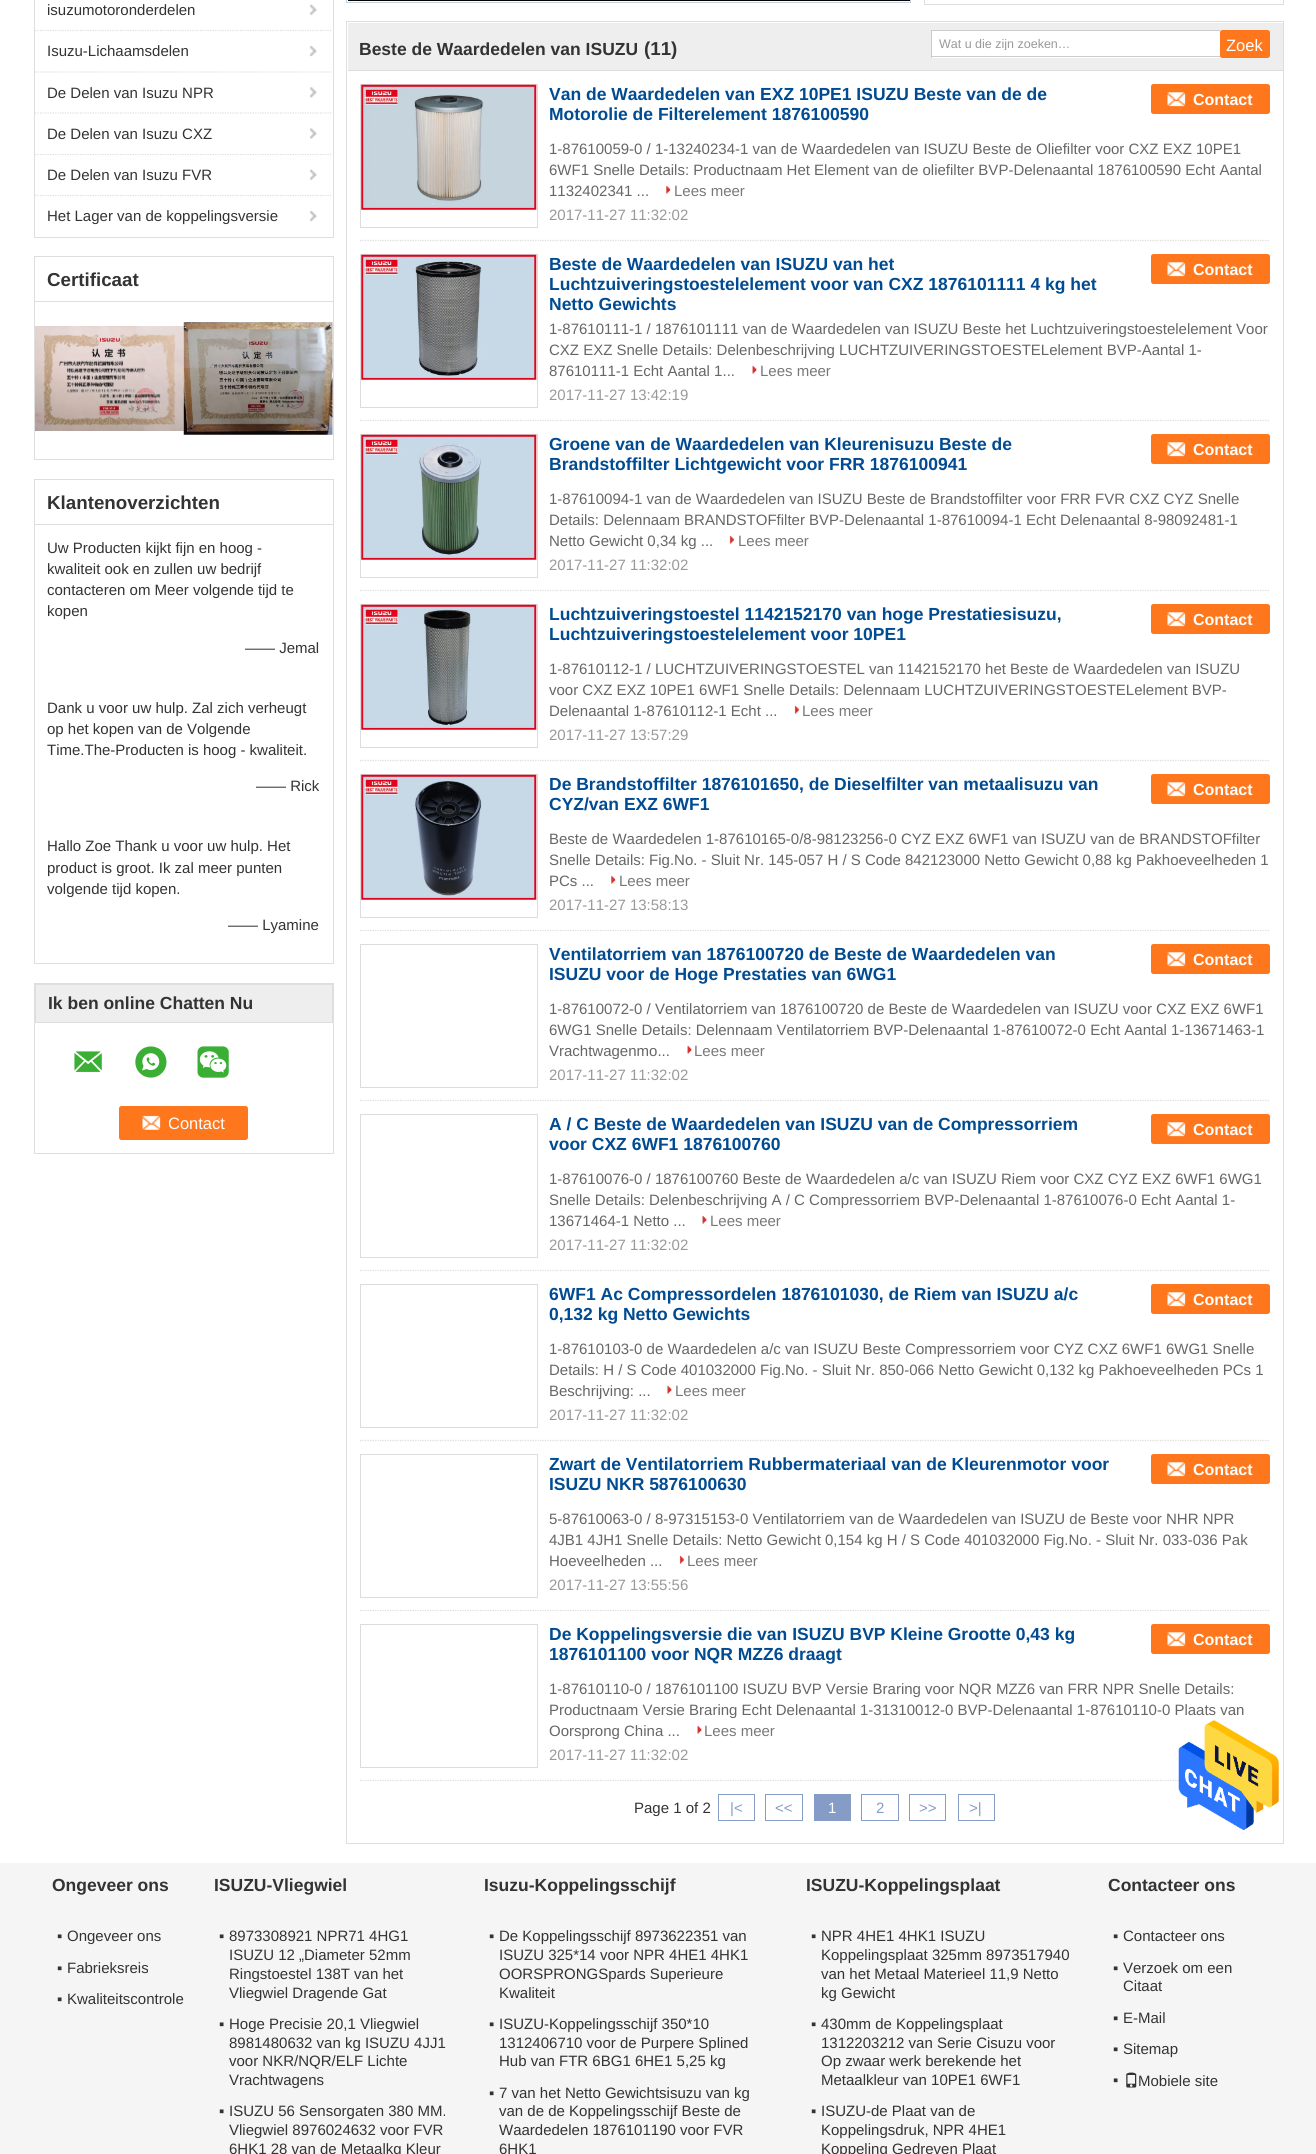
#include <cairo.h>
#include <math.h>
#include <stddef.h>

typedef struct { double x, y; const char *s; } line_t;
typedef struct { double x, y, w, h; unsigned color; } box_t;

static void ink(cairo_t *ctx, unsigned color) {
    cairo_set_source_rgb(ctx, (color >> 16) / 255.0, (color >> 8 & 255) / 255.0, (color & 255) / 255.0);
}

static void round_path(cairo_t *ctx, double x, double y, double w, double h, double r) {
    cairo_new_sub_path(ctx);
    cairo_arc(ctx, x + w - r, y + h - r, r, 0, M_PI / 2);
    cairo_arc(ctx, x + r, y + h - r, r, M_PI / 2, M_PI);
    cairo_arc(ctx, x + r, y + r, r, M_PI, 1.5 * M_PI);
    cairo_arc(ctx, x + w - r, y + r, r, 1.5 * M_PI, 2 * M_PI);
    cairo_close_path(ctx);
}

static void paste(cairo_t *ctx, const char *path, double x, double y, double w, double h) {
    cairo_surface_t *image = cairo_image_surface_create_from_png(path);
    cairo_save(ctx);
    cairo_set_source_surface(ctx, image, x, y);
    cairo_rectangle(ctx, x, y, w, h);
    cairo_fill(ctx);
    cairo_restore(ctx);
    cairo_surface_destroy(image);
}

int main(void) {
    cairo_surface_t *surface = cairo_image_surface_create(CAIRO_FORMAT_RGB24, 1316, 2154);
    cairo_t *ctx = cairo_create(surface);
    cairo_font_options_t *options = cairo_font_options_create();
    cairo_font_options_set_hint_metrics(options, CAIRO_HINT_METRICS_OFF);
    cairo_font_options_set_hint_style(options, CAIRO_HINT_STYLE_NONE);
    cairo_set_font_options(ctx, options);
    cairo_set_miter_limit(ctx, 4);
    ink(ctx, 0xFFFFFF);
    cairo_paint(ctx);
    ink(ctx, 0x080808);
    cairo_rectangle(ctx, 348, 0, 562, 1);
    cairo_fill(ctx);
    cairo_rectangle(ctx, 34.5, -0.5, 299, 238);
    ink(ctx, 0xDEDEDE);
    cairo_set_line_width(ctx, 1);
    cairo_stroke(ctx);
    cairo_select_font_face(ctx, "Liberation Sans", CAIRO_FONT_SLANT_NORMAL, CAIRO_FONT_WEIGHT_NORMAL);
    cairo_set_font_size(ctx, 15);
    ink(ctx, 0x333333);
    cairo_move_to(ctx, 47, 15);
    cairo_show_text(ctx, "isuzumotoronderdelen");
    paste(ctx, "media/1.png", 310, 4, 7, 11);
    cairo_new_path(ctx);
    cairo_move_to(ctx, 35, 30.5);
    cairo_line_to(ctx, 332.5, 30.5);
    ink(ctx, 0xDEDEDE);
    cairo_set_line_width(ctx, 1.2);
    cairo_set_dash(ctx, (double[]){1.25, 1.25}, 2, 0);
    cairo_stroke(ctx);
    ink(ctx, 0x333333);
    cairo_move_to(ctx, 47, 56);
    cairo_show_text(ctx, "Isuzu-Lichaamsdelen");
    paste(ctx, "media/2.png", 310, 46, 7, 11);
    cairo_new_path(ctx);
    cairo_move_to(ctx, 35, 72);
    cairo_line_to(ctx, 332.5, 72);
    ink(ctx, 0xDEDEDE);
    cairo_stroke(ctx);
    ink(ctx, 0x333333);
    cairo_move_to(ctx, 47, 98);
    cairo_show_text(ctx, "De Delen van Isuzu NPR");
    paste(ctx, "media/3.png", 310, 87, 7, 11);
    cairo_new_path(ctx);
    cairo_move_to(ctx, 35, 113);
    cairo_line_to(ctx, 332.5, 113);
    ink(ctx, 0xDEDEDE);
    cairo_stroke(ctx);
    ink(ctx, 0x333333);
    cairo_move_to(ctx, 47, 139);
    cairo_show_text(ctx, "De Delen van Isuzu CXZ");
    paste(ctx, "media/4.png", 310, 128, 7, 11);
    cairo_new_path(ctx);
    cairo_move_to(ctx, 35, 154.5);
    cairo_line_to(ctx, 332.5, 154.5);
    ink(ctx, 0xDEDEDE);
    cairo_stroke(ctx);
    ink(ctx, 0x333333);
    cairo_move_to(ctx, 47, 180);
    cairo_show_text(ctx, "De Delen van Isuzu FVR");
    paste(ctx, "media/1.png", 310, 169, 7, 11);
    cairo_new_path(ctx);
    cairo_move_to(ctx, 35, 195.5);
    cairo_line_to(ctx, 332.5, 195.5);
    ink(ctx, 0xDEDEDE);
    cairo_stroke(ctx);
    ink(ctx, 0x333333);
    cairo_move_to(ctx, 47, 221);
    cairo_show_text(ctx, "Het Lager van de koppelingsversie");
    paste(ctx, "media/2.png", 310, 211, 7, 11);
    cairo_rectangle(ctx, 34.5, 256.5, 299, 203);
    ink(ctx, 0xDEDEDE);
    cairo_set_line_width(ctx, 1);
    cairo_set_dash(ctx, NULL, 0, 0);
    cairo_stroke(ctx);
    cairo_rectangle(ctx, 35, 301, 298, 1);
    cairo_fill(ctx);
    cairo_select_font_face(ctx, "Liberation Sans", CAIRO_FONT_SLANT_NORMAL, CAIRO_FONT_WEIGHT_BOLD);
    cairo_set_font_size(ctx, 18.75);
    ink(ctx, 0x333333);
    cairo_move_to(ctx, 47, 286);
    cairo_show_text(ctx, "Certificaat");
    paste(ctx, "media/5.png", 35, 326, 149, 105);
    paste(ctx, "media/6.png", 183, 322, 150, 113);
    cairo_rectangle(ctx, 34.5, 479.5, 299, 484);
    ink(ctx, 0xDEDEDE);
    cairo_stroke(ctx);
    cairo_rectangle(ctx, 35, 524, 298, 1);
    cairo_fill(ctx);
    ink(ctx, 0x333333);
    cairo_move_to(ctx, 47, 509);
    cairo_show_text(ctx, "Klantenoverzichten");
    cairo_select_font_face(ctx, "Liberation Sans", CAIRO_FONT_SLANT_NORMAL, CAIRO_FONT_WEIGHT_NORMAL);
    cairo_set_font_size(ctx, 15);
    {
        static const line_t items[] = {
            {47, 553, "Uw Producten kijkt fijn en hoog -"},
            {47, 574, "kwaliteit ook en zullen uw bedrijf"},
            {47, 595, "contacteren om Meer volgende tijd te"},
            {47, 616, "kopen"},
            {245, 653, "—— Jemal"},
            {47, 713, "Dank u voor uw hulp. Zal zich verheugt"},
            {47, 734, "op het kopen van de Volgende"},
            {47, 755, "Time.The-Producten is hoog - kwaliteit."},
            {256, 791, "—— Rick"},
            {47, 851, "Hallo Zoe Thank u voor uw hulp. Het"},
            {47, 873, "product is groot. Ik zal meer punten"},
            {47, 894, "volgende tijd kopen."},
            {228, 930, "—— Lyamine"},
        };
        for (size_t i = 0; i < sizeof items / sizeof *items; i++) {
            cairo_move_to(ctx, items[i].x, items[i].y);
            cairo_show_text(ctx, items[i].s);
        }
    }
    cairo_rectangle(ctx, 34.5, 983.5, 299, 170);
    ink(ctx, 0xDEDEDE);
    cairo_stroke(ctx);
    ink(ctx, 0xEEEEEE);
    cairo_rectangle(ctx, 35.5, 984.5, 297, 38);
    cairo_fill_preserve(ctx);
    ink(ctx, 0xDEDEDE);
    cairo_stroke(ctx);
    cairo_select_font_face(ctx, "Liberation Sans", CAIRO_FONT_SLANT_NORMAL, CAIRO_FONT_WEIGHT_BOLD);
    cairo_set_font_size(ctx, 17.5);
    ink(ctx, 0x333333);
    cairo_move_to(ctx, 48, 1009);
    cairo_show_text(ctx, "Ik ben online Chatten Nu");
    paste(ctx, "media/7.png", 74, 1051, 28, 21);
    paste(ctx, "media/8.png", 135, 1046, 32, 32);
    paste(ctx, "media/9.png", 197, 1046, 32, 32);
    ink(ctx, 0xFF771C);
    round_path(ctx, 119, 1106, 129, 34, 2.5);
    cairo_fill(ctx);
    paste(ctx, "media/10.png", 142, 1115, 19, 15);
    cairo_select_font_face(ctx, "Liberation Sans", CAIRO_FONT_SLANT_NORMAL, CAIRO_FONT_WEIGHT_NORMAL);
    cairo_set_font_size(ctx, 16.5);
    ink(ctx, 0xFFFFFF);
    cairo_move_to(ctx, 168, 1129);
    cairo_show_text(ctx, "Contact");
    cairo_rectangle(ctx, 346.5, -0.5, 564, 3);
    ink(ctx, 0xC6D2E0);
    cairo_stroke(ctx);
    paste(ctx, "media/11.png", 357, 0, 543, 1);
    cairo_rectangle(ctx, 924.5, -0.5, 359, 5);
    ink(ctx, 0xDEDEDE);
    cairo_stroke(ctx);
    cairo_rectangle(ctx, 346.5, 21.5, 937, 1822);
    cairo_stroke(ctx);
    ink(ctx, 0xEEEEEE);
    cairo_rectangle(ctx, 348, 23, 935, 47);
    cairo_fill(ctx);
    ink(ctx, 0xDEDEDE);
    cairo_rectangle(ctx, 348, 70, 935, 1);
    cairo_fill(ctx);
    cairo_select_font_face(ctx, "Liberation Sans", CAIRO_FONT_SLANT_NORMAL, CAIRO_FONT_WEIGHT_BOLD);
    cairo_set_font_size(ctx, 17.5);
    ink(ctx, 0x333333);
    cairo_move_to(ctx, 359, 55);
    cairo_show_text(ctx, "Beste de Waardedelen van ISUZU");
    cairo_set_font_size(ctx, 18.75);
    cairo_move_to(ctx, 644, 55);
    cairo_show_text(ctx, "(11)");
    {
        static const box_t items[] = {
            {932, 31, 288, 27, 0xFFFFFF},
            {931, 30, 289, 1, 0xCCCCCC},
            {931, 56, 289, 1, 0xCCCCCC},
            {931, 30, 1, 28, 0xCCCCCC},
        };
        for (size_t i = 0; i < sizeof items / sizeof *items; i++) {
            ink(ctx, items[i].color);
            cairo_rectangle(ctx, items[i].x, items[i].y, items[i].w, items[i].h);
            cairo_fill(ctx);
        }
    }
    cairo_save(ctx);
    cairo_rectangle(ctx, 939, 36, 275, 14);
    cairo_clip(ctx);
    cairo_select_font_face(ctx, "Liberation Sans", CAIRO_FONT_SLANT_NORMAL, CAIRO_FONT_WEIGHT_NORMAL);
    cairo_set_font_size(ctx, 12.5);
    ink(ctx, 0x999999);
    cairo_move_to(ctx, 939, 48);
    cairo_show_text(ctx, "Wat u die zijn zoeken…");
    cairo_restore(ctx);
    ink(ctx, 0xFF771C);
    round_path(ctx, 1220, 30, 50, 28, 2.5);
    cairo_fill(ctx);
    cairo_select_font_face(ctx, "Liberation Sans", CAIRO_FONT_SLANT_NORMAL, CAIRO_FONT_WEIGHT_NORMAL);
    cairo_set_font_size(ctx, 16.5);
    ink(ctx, 0xFFFFFF);
    cairo_move_to(ctx, 1226, 51);
    cairo_show_text(ctx, "Zoek");
    cairo_new_path(ctx);
    cairo_move_to(ctx, 360, 240.5);
    cairo_line_to(ctx, 1270, 240.5);
    ink(ctx, 0xDCDCDC);
    cairo_set_line_width(ctx, 1.2);
    cairo_set_dash(ctx, (double[]){1.25, 1.25}, 2, 0);
    cairo_stroke(ctx);
    cairo_rectangle(ctx, 360.5, 84.5, 177, 143);
    cairo_set_line_width(ctx, 1);
    cairo_set_dash(ctx, NULL, 0, 0);
    cairo_stroke(ctx);
    paste(ctx, "media/12.png", 361, 84, 176, 126);
    cairo_select_font_face(ctx, "Liberation Sans", CAIRO_FONT_SLANT_NORMAL, CAIRO_FONT_WEIGHT_BOLD);
    cairo_set_font_size(ctx, 17.5);
    ink(ctx, 0x004B91);
    cairo_move_to(ctx, 549, 100);
    cairo_show_text(ctx, "Van de Waardedelen van EXZ 10PE1 ISUZU Beste van de de");
    ink(ctx, 0xFF771C);
    round_path(ctx, 1151, 84, 119, 30, 2.5);
    cairo_fill(ctx);
    paste(ctx, "media/13.png", 1167, 92, 19, 15);
    cairo_set_font_size(ctx, 16);
    ink(ctx, 0xFFFFFF);
    cairo_move_to(ctx, 1193, 105);
    cairo_show_text(ctx, "Contact");
    cairo_set_font_size(ctx, 17.5);
    ink(ctx, 0x004B91);
    cairo_move_to(ctx, 549, 120);
    cairo_show_text(ctx, "Motorolie de Filterelement 1876100590");
    cairo_select_font_face(ctx, "Liberation Sans", CAIRO_FONT_SLANT_NORMAL, CAIRO_FONT_WEIGHT_NORMAL);
    cairo_set_font_size(ctx, 15);
    ink(ctx, 0x666666);
    {
        static const line_t items[] = {
            {549, 154, "1-87610059-0 / 1-13240234-1 van de Waardedelen van ISUZU Beste de Oliefilter voor CXZ EXZ 10PE1"},
            {549, 175, "6WF1 Snelle Details: Productnaam Het Element van de oliefilter BVP-Delenaantal 1876100590 Echt Aantal"},
            {549, 196, "1132402341 ..."},
        };
        for (size_t i = 0; i < sizeof items / sizeof *items; i++) {
            cairo_move_to(ctx, items[i].x, items[i].y);
            cairo_show_text(ctx, items[i].s);
        }
    }
    paste(ctx, "media/14.png", 666, 185, 5, 9);
    ink(ctx, 0x787878);
    cairo_move_to(ctx, 674, 196);
    cairo_show_text(ctx, "Lees meer");
    ink(ctx, 0x999999);
    cairo_move_to(ctx, 549, 220);
    cairo_show_text(ctx, "2017-11-27 11:32:02");
    cairo_new_path(ctx);
    cairo_move_to(ctx, 360, 420.5);
    cairo_line_to(ctx, 1270, 420.5);
    ink(ctx, 0xDCDCDC);
    cairo_set_line_width(ctx, 1.2);
    cairo_set_dash(ctx, (double[]){1.25, 1.25}, 2, 0);
    cairo_stroke(ctx);
    cairo_rectangle(ctx, 360.5, 254.5, 177, 153);
    cairo_set_line_width(ctx, 1);
    cairo_set_dash(ctx, NULL, 0, 0);
    cairo_stroke(ctx);
    paste(ctx, "media/15.png", 361, 254, 176, 126);
    cairo_select_font_face(ctx, "Liberation Sans", CAIRO_FONT_SLANT_NORMAL, CAIRO_FONT_WEIGHT_BOLD);
    cairo_set_font_size(ctx, 17.5);
    ink(ctx, 0x004B91);
    cairo_move_to(ctx, 549, 270);
    cairo_show_text(ctx, "Beste de Waardedelen van ISUZU van het");
    ink(ctx, 0xFF771C);
    round_path(ctx, 1151, 254, 119, 30, 2.5);
    cairo_fill(ctx);
    paste(ctx, "media/13.png", 1167, 262, 19, 15);
    cairo_set_font_size(ctx, 16);
    ink(ctx, 0xFFFFFF);
    cairo_move_to(ctx, 1193, 275);
    cairo_show_text(ctx, "Contact");
    cairo_set_font_size(ctx, 17.5);
    ink(ctx, 0x004B91);
    cairo_move_to(ctx, 549, 290);
    cairo_show_text(ctx, "Luchtzuiveringstoestelelement voor van CXZ 1876101111 4 kg het");
    cairo_move_to(ctx, 549, 310);
    cairo_show_text(ctx, "Netto Gewichts");
    cairo_select_font_face(ctx, "Liberation Sans", CAIRO_FONT_SLANT_NORMAL, CAIRO_FONT_WEIGHT_NORMAL);
    cairo_set_font_size(ctx, 15);
    ink(ctx, 0x666666);
    {
        static const line_t items[] = {
            {549, 334, "1-87610111-1 / 1876101111 van de Waardedelen van ISUZU Beste het Luchtzuiveringstoestelelement Voor"},
            {549, 355, "CXZ EXZ Snelle Details: Delenbeschrijving LUCHTZUIVERINGSTOESTELelement BVP-Aantal 1-"},
            {549, 376, "87610111-1 Echt Aantal 1..."},
        };
        for (size_t i = 0; i < sizeof items / sizeof *items; i++) {
            cairo_move_to(ctx, items[i].x, items[i].y);
            cairo_show_text(ctx, items[i].s);
        }
    }
    paste(ctx, "media/16.png", 752, 365, 5, 9);
    ink(ctx, 0x787878);
    cairo_move_to(ctx, 760, 376);
    cairo_show_text(ctx, "Lees meer");
    ink(ctx, 0x999999);
    cairo_move_to(ctx, 549, 400);
    cairo_show_text(ctx, "2017-11-27 13:42:19");
    cairo_new_path(ctx);
    cairo_move_to(ctx, 360, 590.5);
    cairo_line_to(ctx, 1270, 590.5);
    ink(ctx, 0xDCDCDC);
    cairo_set_line_width(ctx, 1.2);
    cairo_set_dash(ctx, (double[]){1.25, 1.25}, 2, 0);
    cairo_stroke(ctx);
    cairo_rectangle(ctx, 360.5, 434.5, 177, 143);
    cairo_set_line_width(ctx, 1);
    cairo_set_dash(ctx, NULL, 0, 0);
    cairo_stroke(ctx);
    paste(ctx, "media/17.png", 361, 434, 176, 126);
    cairo_select_font_face(ctx, "Liberation Sans", CAIRO_FONT_SLANT_NORMAL, CAIRO_FONT_WEIGHT_BOLD);
    cairo_set_font_size(ctx, 17.5);
    ink(ctx, 0x004B91);
    cairo_move_to(ctx, 549, 450);
    cairo_show_text(ctx, "Groene van de Waardedelen van Kleurenisuzu Beste de");
    ink(ctx, 0xFF771C);
    round_path(ctx, 1151, 434, 119, 30, 2.5);
    cairo_fill(ctx);
    paste(ctx, "media/13.png", 1167, 442, 19, 15);
    cairo_set_font_size(ctx, 16);
    ink(ctx, 0xFFFFFF);
    cairo_move_to(ctx, 1193, 455);
    cairo_show_text(ctx, "Contact");
    cairo_set_font_size(ctx, 17.5);
    ink(ctx, 0x004B91);
    cairo_move_to(ctx, 549, 470);
    cairo_show_text(ctx, "Brandstoffilter Lichtgewicht voor FRR 1876100941");
    cairo_select_font_face(ctx, "Liberation Sans", CAIRO_FONT_SLANT_NORMAL, CAIRO_FONT_WEIGHT_NORMAL);
    cairo_set_font_size(ctx, 15);
    ink(ctx, 0x666666);
    {
        static const line_t items[] = {
            {549, 504, "1-87610094-1 van de Waardedelen van ISUZU Beste de Brandstoffilter voor FRR FVR CXZ CYZ Snelle"},
            {549, 525, "Details: Delennaam BRANDSTOFfilter BVP-Delenaantal 1-87610094-1 Echt Delenaantal 8-98092481-1"},
            {549, 546, "Netto Gewicht 0,34 kg ..."},
        };
        for (size_t i = 0; i < sizeof items / sizeof *items; i++) {
            cairo_move_to(ctx, items[i].x, items[i].y);
            cairo_show_text(ctx, items[i].s);
        }
    }
    paste(ctx, "media/18.png", 729, 535, 5, 9);
    ink(ctx, 0x787878);
    cairo_move_to(ctx, 738, 546);
    cairo_show_text(ctx, "Lees meer");
    ink(ctx, 0x999999);
    cairo_move_to(ctx, 549, 570);
    cairo_show_text(ctx, "2017-11-27 11:32:02");
    cairo_new_path(ctx);
    cairo_move_to(ctx, 360, 760.5);
    cairo_line_to(ctx, 1270, 760.5);
    ink(ctx, 0xDCDCDC);
    cairo_set_line_width(ctx, 1.2);
    cairo_set_dash(ctx, (double[]){1.25, 1.25}, 2, 0);
    cairo_stroke(ctx);
    cairo_rectangle(ctx, 360.5, 604.5, 177, 143);
    cairo_set_line_width(ctx, 1);
    cairo_set_dash(ctx, NULL, 0, 0);
    cairo_stroke(ctx);
    paste(ctx, "media/19.png", 361, 604, 176, 126);
    cairo_select_font_face(ctx, "Liberation Sans", CAIRO_FONT_SLANT_NORMAL, CAIRO_FONT_WEIGHT_BOLD);
    cairo_set_font_size(ctx, 17.5);
    ink(ctx, 0x004B91);
    cairo_move_to(ctx, 549, 620);
    cairo_show_text(ctx, "Luchtzuiveringstoestel 1142152170 van hoge Prestatiesisuzu,");
    ink(ctx, 0xFF771C);
    round_path(ctx, 1151, 604, 119, 30, 2.5);
    cairo_fill(ctx);
    paste(ctx, "media/13.png", 1167, 612, 19, 15);
    cairo_set_font_size(ctx, 16);
    ink(ctx, 0xFFFFFF);
    cairo_move_to(ctx, 1193, 625);
    cairo_show_text(ctx, "Contact");
    cairo_set_font_size(ctx, 17.5);
    ink(ctx, 0x004B91);
    cairo_move_to(ctx, 549, 640);
    cairo_show_text(ctx, "Luchtzuiveringstoestelelement voor 10PE1");
    cairo_select_font_face(ctx, "Liberation Sans", CAIRO_FONT_SLANT_NORMAL, CAIRO_FONT_WEIGHT_NORMAL);
    cairo_set_font_size(ctx, 15);
    ink(ctx, 0x666666);
    {
        static const line_t items[] = {
            {549, 674, "1-87610112-1 / LUCHTZUIVERINGSTOESTEL van 1142152170 het Beste de Waardedelen van ISUZU"},
            {549, 695, "voor CXZ EXZ 10PE1 6WF1 Snelle Details: Delennaam LUCHTZUIVERINGSTOESTELelement BVP-"},
            {549, 716, "Delenaantal 1-87610112-1 Echt ..."},
        };
        for (size_t i = 0; i < sizeof items / sizeof *items; i++) {
            cairo_move_to(ctx, items[i].x, items[i].y);
            cairo_show_text(ctx, items[i].s);
        }
    }
    paste(ctx, "media/18.png", 794, 705, 5, 9);
    ink(ctx, 0x787878);
    cairo_move_to(ctx, 802, 716);
    cairo_show_text(ctx, "Lees meer");
    ink(ctx, 0x999999);
    cairo_move_to(ctx, 549, 740);
    cairo_show_text(ctx, "2017-11-27 13:57:29");
    cairo_new_path(ctx);
    cairo_move_to(ctx, 360, 930.5);
    cairo_line_to(ctx, 1270, 930.5);
    ink(ctx, 0xDCDCDC);
    cairo_set_line_width(ctx, 1.2);
    cairo_set_dash(ctx, (double[]){1.25, 1.25}, 2, 0);
    cairo_stroke(ctx);
    cairo_rectangle(ctx, 360.5, 774.5, 177, 143);
    cairo_set_line_width(ctx, 1);
    cairo_set_dash(ctx, NULL, 0, 0);
    cairo_stroke(ctx);
    paste(ctx, "media/20.png", 361, 774, 176, 126);
    cairo_select_font_face(ctx, "Liberation Sans", CAIRO_FONT_SLANT_NORMAL, CAIRO_FONT_WEIGHT_BOLD);
    cairo_set_font_size(ctx, 17.5);
    ink(ctx, 0x004B91);
    cairo_move_to(ctx, 549, 790);
    cairo_show_text(ctx, "De Brandstoffilter 1876101650, de Dieselfilter van metaalisuzu van");
    ink(ctx, 0xFF771C);
    round_path(ctx, 1151, 774, 119, 30, 2.5);
    cairo_fill(ctx);
    paste(ctx, "media/13.png", 1167, 782, 19, 15);
    cairo_set_font_size(ctx, 16);
    ink(ctx, 0xFFFFFF);
    cairo_move_to(ctx, 1193, 795);
    cairo_show_text(ctx, "Contact");
    cairo_set_font_size(ctx, 17.5);
    ink(ctx, 0x004B91);
    cairo_move_to(ctx, 549, 810);
    cairo_show_text(ctx, "CYZ/van EXZ 6WF1");
    cairo_select_font_face(ctx, "Liberation Sans", CAIRO_FONT_SLANT_NORMAL, CAIRO_FONT_WEIGHT_NORMAL);
    cairo_set_font_size(ctx, 15);
    ink(ctx, 0x666666);
    {
        static const line_t items[] = {
            {549, 844, "Beste de Waardedelen 1-87610165-0/8-98123256-0 CYZ EXZ 6WF1 van ISUZU van de BRANDSTOFfilter"},
            {549, 865, "Snelle Details: Fig.No. - Sluit Nr. 145-057 H / S Code 842123000 Netto Gewicht 0,88 kg Pakhoeveelheden 1"},
            {549, 886, "PCs ..."},
        };
        for (size_t i = 0; i < sizeof items / sizeof *items; i++) {
            cairo_move_to(ctx, items[i].x, items[i].y);
            cairo_show_text(ctx, items[i].s);
        }
    }
    paste(ctx, "media/14.png", 611, 875, 5, 9);
    ink(ctx, 0x787878);
    cairo_move_to(ctx, 619, 886);
    cairo_show_text(ctx, "Lees meer");
    ink(ctx, 0x999999);
    cairo_move_to(ctx, 549, 910);
    cairo_show_text(ctx, "2017-11-27 13:58:13");
    cairo_new_path(ctx);
    cairo_move_to(ctx, 360, 1100.5);
    cairo_line_to(ctx, 1270, 1100.5);
    ink(ctx, 0xDCDCDC);
    cairo_set_line_width(ctx, 1.2);
    cairo_set_dash(ctx, (double[]){1.25, 1.25}, 2, 0);
    cairo_stroke(ctx);
    cairo_rectangle(ctx, 360.5, 944.5, 177, 143);
    cairo_set_line_width(ctx, 1);
    cairo_set_dash(ctx, NULL, 0, 0);
    cairo_stroke(ctx);
    cairo_select_font_face(ctx, "Liberation Sans", CAIRO_FONT_SLANT_NORMAL, CAIRO_FONT_WEIGHT_BOLD);
    cairo_set_font_size(ctx, 17.5);
    ink(ctx, 0x004B91);
    cairo_move_to(ctx, 549, 960);
    cairo_show_text(ctx, "Ventilatorriem van 1876100720 de Beste de Waardedelen van");
    ink(ctx, 0xFF771C);
    round_path(ctx, 1151, 944, 119, 30, 2.5);
    cairo_fill(ctx);
    paste(ctx, "media/13.png", 1167, 952, 19, 15);
    cairo_set_font_size(ctx, 16);
    ink(ctx, 0xFFFFFF);
    cairo_move_to(ctx, 1193, 965);
    cairo_show_text(ctx, "Contact");
    cairo_set_font_size(ctx, 17.5);
    ink(ctx, 0x004B91);
    cairo_move_to(ctx, 549, 980);
    cairo_show_text(ctx, "ISUZU voor de Hoge Prestaties van 6WG1");
    cairo_select_font_face(ctx, "Liberation Sans", CAIRO_FONT_SLANT_NORMAL, CAIRO_FONT_WEIGHT_NORMAL);
    cairo_set_font_size(ctx, 15);
    ink(ctx, 0x666666);
    {
        static const line_t items[] = {
            {549, 1014, "1-87610072-0 / Ventilatorriem van 1876100720 de Beste de Waardedelen van ISUZU voor CXZ EXZ 6WF1"},
            {549, 1035, "6WG1 Snelle Details: Delennaam Ventilatorriem BVP-Delenaantal 1-87610072-0 Echt Aantal 1-13671463-1"},
            {549, 1056, "Vrachtwagenmo..."},
        };
        for (size_t i = 0; i < sizeof items / sizeof *items; i++) {
            cairo_move_to(ctx, items[i].x, items[i].y);
            cairo_show_text(ctx, items[i].s);
        }
    }
    paste(ctx, "media/16.png", 687, 1045, 5, 9);
    ink(ctx, 0x787878);
    cairo_move_to(ctx, 694, 1056);
    cairo_show_text(ctx, "Lees meer");
    ink(ctx, 0x999999);
    cairo_move_to(ctx, 549, 1080);
    cairo_show_text(ctx, "2017-11-27 11:32:02");
    cairo_new_path(ctx);
    cairo_move_to(ctx, 360, 1270.5);
    cairo_line_to(ctx, 1270, 1270.5);
    ink(ctx, 0xDCDCDC);
    cairo_set_line_width(ctx, 1.2);
    cairo_set_dash(ctx, (double[]){1.25, 1.25}, 2, 0);
    cairo_stroke(ctx);
    cairo_rectangle(ctx, 360.5, 1114.5, 177, 143);
    cairo_set_line_width(ctx, 1);
    cairo_set_dash(ctx, NULL, 0, 0);
    cairo_stroke(ctx);
    cairo_select_font_face(ctx, "Liberation Sans", CAIRO_FONT_SLANT_NORMAL, CAIRO_FONT_WEIGHT_BOLD);
    cairo_set_font_size(ctx, 17.5);
    ink(ctx, 0x004B91);
    cairo_move_to(ctx, 549, 1130);
    cairo_show_text(ctx, "A / C Beste de Waardedelen van ISUZU van de Compressorriem");
    ink(ctx, 0xFF771C);
    round_path(ctx, 1151, 1114, 119, 30, 2.5);
    cairo_fill(ctx);
    paste(ctx, "media/13.png", 1167, 1122, 19, 15);
    cairo_set_font_size(ctx, 16);
    ink(ctx, 0xFFFFFF);
    cairo_move_to(ctx, 1193, 1135);
    cairo_show_text(ctx, "Contact");
    cairo_set_font_size(ctx, 17.5);
    ink(ctx, 0x004B91);
    cairo_move_to(ctx, 549, 1150);
    cairo_show_text(ctx, "voor CXZ 6WF1 1876100760");
    cairo_select_font_face(ctx, "Liberation Sans", CAIRO_FONT_SLANT_NORMAL, CAIRO_FONT_WEIGHT_NORMAL);
    cairo_set_font_size(ctx, 15);
    ink(ctx, 0x666666);
    {
        static const line_t items[] = {
            {549, 1184, "1-87610076-0 / 1876100760 Beste de Waardedelen a/c van ISUZU Riem voor CXZ CYZ EXZ 6WF1 6WG1"},
            {549, 1205, "Snelle Details: Delenbeschrijving A / C Compressorriem BVP-Delenaantal 1-87610076-0 Echt Aantal 1-"},
            {549, 1226, "13671464-1 Netto ..."},
        };
        for (size_t i = 0; i < sizeof items / sizeof *items; i++) {
            cairo_move_to(ctx, items[i].x, items[i].y);
            cairo_show_text(ctx, items[i].s);
        }
    }
    paste(ctx, "media/21.png", 702, 1215, 5, 9);
    ink(ctx, 0x787878);
    cairo_move_to(ctx, 710, 1226);
    cairo_show_text(ctx, "Lees meer");
    ink(ctx, 0x999999);
    cairo_move_to(ctx, 549, 1250);
    cairo_show_text(ctx, "2017-11-27 11:32:02");
    cairo_new_path(ctx);
    cairo_move_to(ctx, 360, 1440.5);
    cairo_line_to(ctx, 1270, 1440.5);
    ink(ctx, 0xDCDCDC);
    cairo_set_line_width(ctx, 1.2);
    cairo_set_dash(ctx, (double[]){1.25, 1.25}, 2, 0);
    cairo_stroke(ctx);
    cairo_rectangle(ctx, 360.5, 1284.5, 177, 143);
    cairo_set_line_width(ctx, 1);
    cairo_set_dash(ctx, NULL, 0, 0);
    cairo_stroke(ctx);
    cairo_select_font_face(ctx, "Liberation Sans", CAIRO_FONT_SLANT_NORMAL, CAIRO_FONT_WEIGHT_BOLD);
    cairo_set_font_size(ctx, 17.5);
    ink(ctx, 0x004B91);
    cairo_move_to(ctx, 549, 1300);
    cairo_show_text(ctx, "6WF1 Ac Compressordelen 1876101030, de Riem van ISUZU a/c");
    ink(ctx, 0xFF771C);
    round_path(ctx, 1151, 1284, 119, 30, 2.5);
    cairo_fill(ctx);
    paste(ctx, "media/13.png", 1167, 1292, 19, 15);
    cairo_set_font_size(ctx, 16);
    ink(ctx, 0xFFFFFF);
    cairo_move_to(ctx, 1193, 1305);
    cairo_show_text(ctx, "Contact");
    cairo_set_font_size(ctx, 17.5);
    ink(ctx, 0x004B91);
    cairo_move_to(ctx, 549, 1320);
    cairo_show_text(ctx, "0,132 kg Netto Gewichts");
    cairo_select_font_face(ctx, "Liberation Sans", CAIRO_FONT_SLANT_NORMAL, CAIRO_FONT_WEIGHT_NORMAL);
    cairo_set_font_size(ctx, 15);
    ink(ctx, 0x666666);
    {
        static const line_t items[] = {
            {549, 1354, "1-87610103-0 de Waardedelen a/c van ISUZU Beste Compressorriem voor CYZ CXZ 6WF1 6WG1 Snelle"},
            {549, 1375, "Details: H / S Code 401032000 Fig.No. - Sluit Nr. 850-066 Netto Gewicht 0,132 kg Pakhoeveelheden PCs 1"},
            {549, 1396, "Beschrijving: ..."},
        };
        for (size_t i = 0; i < sizeof items / sizeof *items; i++) {
            cairo_move_to(ctx, items[i].x, items[i].y);
            cairo_show_text(ctx, items[i].s);
        }
    }
    paste(ctx, "media/22.png", 667, 1385, 5, 9);
    ink(ctx, 0x787878);
    cairo_move_to(ctx, 675, 1396);
    cairo_show_text(ctx, "Lees meer");
    ink(ctx, 0x999999);
    cairo_move_to(ctx, 549, 1420);
    cairo_show_text(ctx, "2017-11-27 11:32:02");
    cairo_new_path(ctx);
    cairo_move_to(ctx, 360, 1610.5);
    cairo_line_to(ctx, 1270, 1610.5);
    ink(ctx, 0xDCDCDC);
    cairo_set_line_width(ctx, 1.2);
    cairo_set_dash(ctx, (double[]){1.25, 1.25}, 2, 0);
    cairo_stroke(ctx);
    cairo_rectangle(ctx, 360.5, 1454.5, 177, 143);
    cairo_set_line_width(ctx, 1);
    cairo_set_dash(ctx, NULL, 0, 0);
    cairo_stroke(ctx);
    cairo_select_font_face(ctx, "Liberation Sans", CAIRO_FONT_SLANT_NORMAL, CAIRO_FONT_WEIGHT_BOLD);
    cairo_set_font_size(ctx, 17.5);
    ink(ctx, 0x004B91);
    cairo_move_to(ctx, 549, 1470);
    cairo_show_text(ctx, "Zwart de Ventilatorriem Rubbermateriaal van de Kleurenmotor voor");
    ink(ctx, 0xFF771C);
    round_path(ctx, 1151, 1454, 119, 30, 2.5);
    cairo_fill(ctx);
    paste(ctx, "media/13.png", 1167, 1462, 19, 15);
    cairo_set_font_size(ctx, 16);
    ink(ctx, 0xFFFFFF);
    cairo_move_to(ctx, 1193, 1475);
    cairo_show_text(ctx, "Contact");
    cairo_set_font_size(ctx, 17.5);
    ink(ctx, 0x004B91);
    cairo_move_to(ctx, 549, 1490);
    cairo_show_text(ctx, "ISUZU NKR 5876100630");
    cairo_select_font_face(ctx, "Liberation Sans", CAIRO_FONT_SLANT_NORMAL, CAIRO_FONT_WEIGHT_NORMAL);
    cairo_set_font_size(ctx, 15);
    ink(ctx, 0x666666);
    {
        static const line_t items[] = {
            {549, 1524, "5-87610063-0 / 8-97315153-0 Ventilatorriem van de Waardedelen van ISUZU de Beste voor NHR NPR"},
            {549, 1545, "4JB1 4JH1 Snelle Details: Netto Gewicht 0,154 kg H / S Code 401032000 Fig.No. - Sluit Nr. 033-036 Pak"},
            {549, 1566, "Hoeveelheden ..."},
        };
        for (size_t i = 0; i < sizeof items / sizeof *items; i++) {
            cairo_move_to(ctx, items[i].x, items[i].y);
            cairo_show_text(ctx, items[i].s);
        }
    }
    paste(ctx, "media/18.png", 679, 1555, 5, 9);
    ink(ctx, 0x787878);
    cairo_move_to(ctx, 687, 1566);
    cairo_show_text(ctx, "Lees meer");
    ink(ctx, 0x999999);
    cairo_move_to(ctx, 549, 1590);
    cairo_show_text(ctx, "2017-11-27 13:55:56");
    cairo_new_path(ctx);
    cairo_move_to(ctx, 360, 1780.5);
    cairo_line_to(ctx, 1270, 1780.5);
    ink(ctx, 0xDCDCDC);
    cairo_set_line_width(ctx, 1.2);
    cairo_set_dash(ctx, (double[]){1.25, 1.25}, 2, 0);
    cairo_stroke(ctx);
    cairo_rectangle(ctx, 360.5, 1624.5, 177, 143);
    cairo_set_line_width(ctx, 1);
    cairo_set_dash(ctx, NULL, 0, 0);
    cairo_stroke(ctx);
    cairo_select_font_face(ctx, "Liberation Sans", CAIRO_FONT_SLANT_NORMAL, CAIRO_FONT_WEIGHT_BOLD);
    cairo_set_font_size(ctx, 17.5);
    ink(ctx, 0x004B91);
    cairo_move_to(ctx, 549, 1640);
    cairo_show_text(ctx, "De Koppelingsversie die van ISUZU BVP Kleine Grootte 0,43 kg");
    ink(ctx, 0xFF771C);
    round_path(ctx, 1151, 1624, 119, 30, 2.5);
    cairo_fill(ctx);
    paste(ctx, "media/13.png", 1167, 1632, 19, 15);
    cairo_set_font_size(ctx, 16);
    ink(ctx, 0xFFFFFF);
    cairo_move_to(ctx, 1193, 1645);
    cairo_show_text(ctx, "Contact");
    cairo_set_font_size(ctx, 17.5);
    ink(ctx, 0x004B91);
    cairo_move_to(ctx, 549, 1660);
    cairo_show_text(ctx, "1876101100 voor NQR MZZ6 draagt");
    cairo_select_font_face(ctx, "Liberation Sans", CAIRO_FONT_SLANT_NORMAL, CAIRO_FONT_WEIGHT_NORMAL);
    cairo_set_font_size(ctx, 15);
    ink(ctx, 0x666666);
    {
        static const line_t items[] = {
            {549, 1694, "1-87610110-0 / 1876101100 ISUZU BVP Versie Braring voor NQR MZZ6 van FRR NPR Snelle Details:"},
            {549, 1715, "Productnaam Versie Braring Echt Delenaantal 1-31310012-0 BVP-Delenaantal 1-87610110-0 Plaats van"},
            {549, 1736, "Oorsprong China ..."},
        };
        for (size_t i = 0; i < sizeof items / sizeof *items; i++) {
            cairo_move_to(ctx, items[i].x, items[i].y);
            cairo_show_text(ctx, items[i].s);
        }
    }
    paste(ctx, "media/16.png", 697, 1725, 5, 9);
    ink(ctx, 0x787878);
    cairo_move_to(ctx, 704, 1736);
    cairo_show_text(ctx, "Lees meer");
    ink(ctx, 0x999999);
    cairo_move_to(ctx, 549, 1760);
    cairo_show_text(ctx, "2017-11-27 11:32:02");
    ink(ctx, 0x333333);
    cairo_move_to(ctx, 634, 1813);
    cairo_show_text(ctx, "Page 1 of 2");
    cairo_rectangle(ctx, 718.5, 1794.5, 36, 26);
    ink(ctx, 0x849CC6);
    cairo_stroke(ctx);
    cairo_move_to(ctx, 730, 1813);
    cairo_show_text(ctx, "|<");
    cairo_rectangle(ctx, 765.5, 1794.5, 37, 26);
    cairo_stroke(ctx);
    cairo_move_to(ctx, 775, 1813);
    cairo_show_text(ctx, "<<");
    cairo_rectangle(ctx, 814, 1794, 37, 27);
    cairo_fill(ctx);
    ink(ctx, 0xFFFFFF);
    cairo_move_to(ctx, 828, 1813);
    cairo_show_text(ctx, "1");
    cairo_rectangle(ctx, 861.5, 1794.5, 37, 26);
    ink(ctx, 0x849CC6);
    cairo_stroke(ctx);
    cairo_move_to(ctx, 876, 1813);
    cairo_show_text(ctx, "2");
    cairo_rectangle(ctx, 909.5, 1794.5, 36, 26);
    cairo_stroke(ctx);
    cairo_move_to(ctx, 919, 1813);
    cairo_show_text(ctx, ">>");
    cairo_rectangle(ctx, 958.5, 1794.5, 36, 26);
    cairo_stroke(ctx);
    cairo_move_to(ctx, 969, 1813);
    cairo_show_text(ctx, ">|");
    paste(ctx, "media/23.png", 1178, 1720, 101, 110);
    ink(ctx, 0xF5F5F5);
    cairo_rectangle(ctx, 0, 1863, 1316, 291);
    cairo_fill(ctx);
    cairo_select_font_face(ctx, "Liberation Sans", CAIRO_FONT_SLANT_NORMAL, CAIRO_FONT_WEIGHT_BOLD);
    cairo_set_font_size(ctx, 17.5);
    ink(ctx, 0x333333);
    cairo_move_to(ctx, 52, 1891);
    cairo_show_text(ctx, "Ongeveer ons");
    cairo_select_font_face(ctx, "Liberation Sans", CAIRO_FONT_SLANT_NORMAL, CAIRO_FONT_WEIGHT_NORMAL);
    cairo_set_font_size(ctx, 15);
    {
        static const line_t items[] = {
            {57, 1941, "▪"},
            {67, 1941, "Ongeveer ons"},
            {57, 1973, "▪"},
            {67, 1973, "Fabrieksreis"},
            {57, 2004, "▪"},
            {67, 2004, "Kwaliteitscontrole"},
        };
        for (size_t i = 0; i < sizeof items / sizeof *items; i++) {
            cairo_move_to(ctx, items[i].x, items[i].y);
            cairo_show_text(ctx, items[i].s);
        }
    }
    cairo_select_font_face(ctx, "Liberation Sans", CAIRO_FONT_SLANT_NORMAL, CAIRO_FONT_WEIGHT_BOLD);
    cairo_set_font_size(ctx, 17.5);
    cairo_move_to(ctx, 214, 1891);
    cairo_show_text(ctx, "ISUZU-Vliegwiel");
    cairo_select_font_face(ctx, "Liberation Sans", CAIRO_FONT_SLANT_NORMAL, CAIRO_FONT_WEIGHT_NORMAL);
    cairo_set_font_size(ctx, 15);
    {
        static const line_t items[] = {
            {219, 1941, "▪"},
            {229, 1941, "8973308921 NPR71 4HG1"},
            {229, 1960, "ISUZU 12 „Diameter 52mm"},
            {229, 1979, "Ringstoestel 138T van het"},
            {229, 1998, "Vliegwiel Dragende Gat"},
            {219, 2029, "▪"},
            {229, 2029, "Hoge Precisie 20,1 Vliegwiel"},
            {229, 2048, "8981480632 van kg ISUZU 4JJ1"},
            {229, 2066, "voor NKR/NQR/ELF Lichte"},
            {229, 2085, "Vrachtwagens"},
            {219, 2116, "▪"},
            {229, 2116, "ISUZU 56 Sensorgaten 380 MM."},
            {229, 2135, "Vliegwiel 8976024632 voor FVR"},
            {229, 2154, "6HK1 28 van de Metaalkg Kleur"},
        };
        for (size_t i = 0; i < sizeof items / sizeof *items; i++) {
            cairo_move_to(ctx, items[i].x, items[i].y);
            cairo_show_text(ctx, items[i].s);
        }
    }
    cairo_select_font_face(ctx, "Liberation Sans", CAIRO_FONT_SLANT_NORMAL, CAIRO_FONT_WEIGHT_BOLD);
    cairo_set_font_size(ctx, 17.5);
    cairo_move_to(ctx, 484, 1891);
    cairo_show_text(ctx, "Isuzu-Koppelingsschijf");
    cairo_select_font_face(ctx, "Liberation Sans", CAIRO_FONT_SLANT_NORMAL, CAIRO_FONT_WEIGHT_NORMAL);
    cairo_set_font_size(ctx, 15);
    {
        static const line_t items[] = {
            {489, 1941, "▪"},
            {499, 1941, "De Koppelingsschijf 8973622351 van"},
            {499, 1960, "ISUZU 325*14 voor NPR 4HE1 4HK1"},
            {499, 1979, "OORSPRONGSpards Superieure"},
            {499, 1998, "Kwaliteit"},
            {489, 2029, "▪"},
            {499, 2029, "ISUZU-Koppelingsschijf 350*10"},
            {499, 2048, "1312406710 voor de Purpere Splined"},
            {499, 2066, "Hub van FTR 6BG1 6HE1 5,25 kg"},
            {489, 2098, "▪"},
            {499, 2098, "7 van het Netto Gewichtsisuzu van kg"},
            {499, 2116, "van de de Koppelingsschijf Beste de"},
            {499, 2135, "Waardedelen 1876101190 voor FVR"},
            {499, 2154, "6HK1"},
        };
        for (size_t i = 0; i < sizeof items / sizeof *items; i++) {
            cairo_move_to(ctx, items[i].x, items[i].y);
            cairo_show_text(ctx, items[i].s);
        }
    }
    cairo_select_font_face(ctx, "Liberation Sans", CAIRO_FONT_SLANT_NORMAL, CAIRO_FONT_WEIGHT_BOLD);
    cairo_set_font_size(ctx, 17.5);
    cairo_move_to(ctx, 806, 1891);
    cairo_show_text(ctx, "ISUZU-Koppelingsplaat");
    cairo_select_font_face(ctx, "Liberation Sans", CAIRO_FONT_SLANT_NORMAL, CAIRO_FONT_WEIGHT_NORMAL);
    cairo_set_font_size(ctx, 15);
    {
        static const line_t items[] = {
            {811, 1941, "▪"},
            {821, 1941, "NPR 4HE1 4HK1 ISUZU"},
            {821, 1960, "Koppelingsplaat 325mm 8973517940"},
            {821, 1979, "van het Metaal Materieel 11,9 Netto"},
            {821, 1998, "kg Gewicht"},
            {811, 2029, "▪"},
            {821, 2029, "430mm de Koppelingsplaat"},
            {821, 2048, "1312203212 van Serie Cisuzu voor"},
            {821, 2066, "Op zwaar werk berekende het"},
            {821, 2085, "Metaalkleur van 10PE1 6WF1"},
            {811, 2116, "▪"},
            {821, 2116, "ISUZU-de Plaat van de"},
            {821, 2135, "Koppelingsdruk, NPR 4HE1"},
            {821, 2154, "Koppeling Gedreven Plaat"},
        };
        for (size_t i = 0; i < sizeof items / sizeof *items; i++) {
            cairo_move_to(ctx, items[i].x, items[i].y);
            cairo_show_text(ctx, items[i].s);
        }
    }
    cairo_select_font_face(ctx, "Liberation Sans", CAIRO_FONT_SLANT_NORMAL, CAIRO_FONT_WEIGHT_BOLD);
    cairo_set_font_size(ctx, 17.5);
    cairo_move_to(ctx, 1108, 1891);
    cairo_show_text(ctx, "Contacteer ons");
    cairo_select_font_face(ctx, "Liberation Sans", CAIRO_FONT_SLANT_NORMAL, CAIRO_FONT_WEIGHT_NORMAL);
    cairo_set_font_size(ctx, 15);
    {
        static const line_t items[] = {
            {1113, 1941, "▪"},
            {1123, 1941, "Contacteer ons"},
            {1113, 1973, "▪"},
            {1123, 1973, "Verzoek om een"},
            {1123, 1991, "Citaat"},
            {1113, 2023, "▪"},
            {1123, 2023, "E-Mail"},
            {1113, 2054, "▪"},
            {1123, 2054, "Sitemap"},
            {1113, 2085, "▪"},
        };
        for (size_t i = 0; i < sizeof items / sizeof *items; i++) {
            cairo_move_to(ctx, items[i].x, items[i].y);
            cairo_show_text(ctx, items[i].s);
        }
    }
    paste(ctx, "media/24.png", 1126, 2072, 11, 16);
    cairo_move_to(ctx, 1138, 2086);
    cairo_show_text(ctx, "Mobiele site");
    cairo_surface_write_to_png(surface, "image.png");
    cairo_font_options_destroy(options);
    cairo_destroy(ctx);
    cairo_surface_destroy(surface);
    return 0;
}
